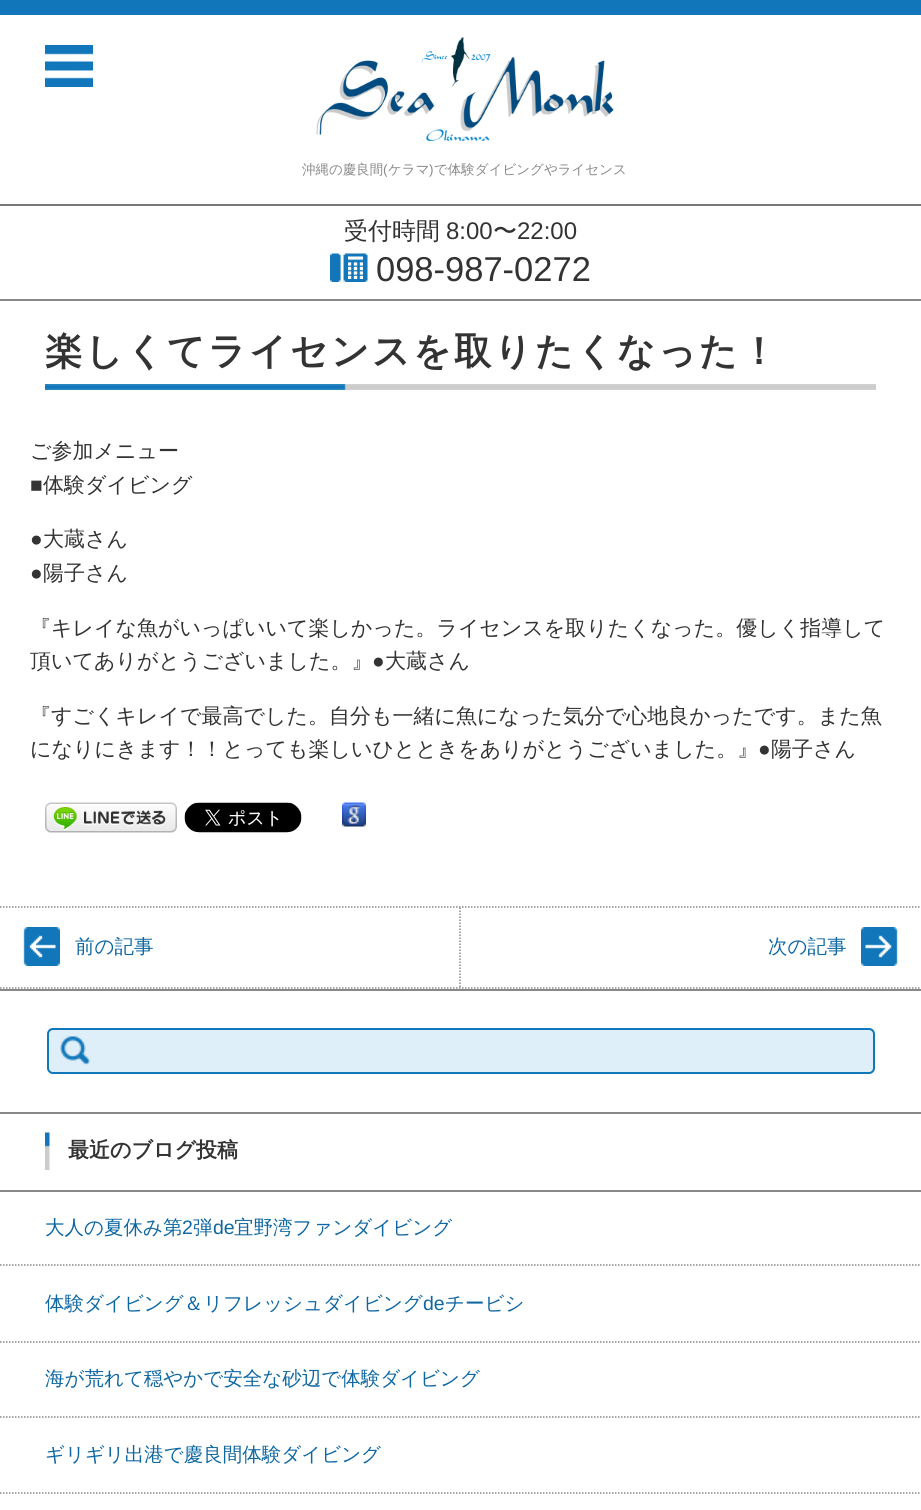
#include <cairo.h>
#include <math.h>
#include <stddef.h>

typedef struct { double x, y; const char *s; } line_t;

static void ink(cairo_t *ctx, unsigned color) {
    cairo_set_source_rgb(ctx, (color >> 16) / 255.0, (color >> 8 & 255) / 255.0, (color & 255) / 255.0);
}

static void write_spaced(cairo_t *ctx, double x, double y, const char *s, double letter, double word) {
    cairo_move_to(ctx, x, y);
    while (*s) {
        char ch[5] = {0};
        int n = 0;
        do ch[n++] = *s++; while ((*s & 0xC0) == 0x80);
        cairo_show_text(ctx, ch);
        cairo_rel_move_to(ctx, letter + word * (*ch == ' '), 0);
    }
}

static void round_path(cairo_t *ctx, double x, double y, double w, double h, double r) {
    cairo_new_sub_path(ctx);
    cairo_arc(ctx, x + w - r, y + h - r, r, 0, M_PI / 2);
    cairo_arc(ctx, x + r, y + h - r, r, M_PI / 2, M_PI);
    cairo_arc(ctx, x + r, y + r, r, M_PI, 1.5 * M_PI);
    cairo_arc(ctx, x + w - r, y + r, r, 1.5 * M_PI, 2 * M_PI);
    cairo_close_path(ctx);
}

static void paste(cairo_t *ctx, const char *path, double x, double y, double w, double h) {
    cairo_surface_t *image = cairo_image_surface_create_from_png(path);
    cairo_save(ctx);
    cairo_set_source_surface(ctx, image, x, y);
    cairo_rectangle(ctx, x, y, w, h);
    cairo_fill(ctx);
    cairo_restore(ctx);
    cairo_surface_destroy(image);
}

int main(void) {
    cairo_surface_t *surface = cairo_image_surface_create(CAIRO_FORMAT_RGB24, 921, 1510);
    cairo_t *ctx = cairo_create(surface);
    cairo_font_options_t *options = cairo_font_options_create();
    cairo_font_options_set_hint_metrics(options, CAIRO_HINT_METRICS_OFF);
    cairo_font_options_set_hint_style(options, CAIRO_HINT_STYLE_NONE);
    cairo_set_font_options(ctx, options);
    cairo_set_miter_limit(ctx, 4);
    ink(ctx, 0xFFFFFF);
    cairo_paint(ctx);
    ink(ctx, 0x1177BA);
    cairo_rectangle(ctx, 0, 0, 921, 15);
    cairo_fill(ctx);
    paste(ctx, "media/1.png", 45, 45, 48, 42);
    ink(ctx, 0x777777);
    cairo_rectangle(ctx, 0, 204, 921, 2);
    cairo_fill(ctx);
    paste(ctx, "media/2.png", 316, 37, 298, 104);
    cairo_select_font_face(ctx, "WenQuanYi Zen Hei Medium", CAIRO_FONT_SLANT_NORMAL, CAIRO_FONT_WEIGHT_NORMAL);
    cairo_set_font_size(ctx, 13.5);
    ink(ctx, 0x888888);
    cairo_move_to(ctx, 302, 174);
    cairo_show_text(ctx, "沖縄の慶良間");
    cairo_select_font_face(ctx, "Liberation Sans", CAIRO_FONT_SLANT_NORMAL, CAIRO_FONT_WEIGHT_NORMAL);
    cairo_move_to(ctx, 383, 174);
    cairo_show_text(ctx, "(");
    cairo_select_font_face(ctx, "WenQuanYi Zen Hei Medium", CAIRO_FONT_SLANT_NORMAL, CAIRO_FONT_WEIGHT_NORMAL);
    cairo_move_to(ctx, 388, 174);
    cairo_show_text(ctx, "ケラマ");
    cairo_select_font_face(ctx, "Liberation Sans", CAIRO_FONT_SLANT_NORMAL, CAIRO_FONT_WEIGHT_NORMAL);
    cairo_move_to(ctx, 429, 174);
    cairo_show_text(ctx, ")");
    cairo_select_font_face(ctx, "WenQuanYi Zen Hei Medium", CAIRO_FONT_SLANT_NORMAL, CAIRO_FONT_WEIGHT_NORMAL);
    cairo_move_to(ctx, 434, 174);
    cairo_show_text(ctx, "で体験ダイビングやライセンス");
    cairo_set_font_size(ctx, 24);
    ink(ctx, 0x333333);
    cairo_move_to(ctx, 344, 239);
    cairo_show_text(ctx, "受付時間");
    cairo_select_font_face(ctx, "Liberation Sans", CAIRO_FONT_SLANT_NORMAL, CAIRO_FONT_WEIGHT_NORMAL);
    cairo_move_to(ctx, 446, 239);
    cairo_show_text(ctx, "8:00");
    cairo_select_font_face(ctx, "WenQuanYi Zen Hei Medium", CAIRO_FONT_SLANT_NORMAL, CAIRO_FONT_WEIGHT_NORMAL);
    cairo_move_to(ctx, 493, 239);
    cairo_show_text(ctx, "〜");
    cairo_select_font_face(ctx, "Liberation Sans", CAIRO_FONT_SLANT_NORMAL, CAIRO_FONT_WEIGHT_NORMAL);
    cairo_move_to(ctx, 517, 239);
    cairo_show_text(ctx, "22:00");
    paste(ctx, "media/3.png", 330, 252, 38, 30);
    cairo_set_font_size(ctx, 34.5);
    cairo_move_to(ctx, 376, 281);
    cairo_show_text(ctx, "098-987-0272");
    ink(ctx, 0x888888);
    cairo_rectangle(ctx, 0, 299, 921, 2);
    cairo_fill(ctx);
    paste(ctx, "media/4.png", 45, 384, 831, 6);
    cairo_select_font_face(ctx, "WenQuanYi Zen Hei", CAIRO_FONT_SLANT_NORMAL, CAIRO_FONT_WEIGHT_BOLD);
    cairo_set_font_size(ctx, 37.5);
    ink(ctx, 0x333333);
    write_spaced(ctx, 45, 364, "楽しくてライセンスを取りたくなった！", 2.6, 0);
    cairo_select_font_face(ctx, "WenQuanYi Zen Hei Medium", CAIRO_FONT_SLANT_NORMAL, CAIRO_FONT_WEIGHT_NORMAL);
    cairo_set_font_size(ctx, 21);
    cairo_move_to(ctx, 30, 458);
    cairo_show_text(ctx, "ご参加メニュー");
    cairo_select_font_face(ctx, "Liberation Sans", CAIRO_FONT_SLANT_NORMAL, CAIRO_FONT_WEIGHT_NORMAL);
    cairo_move_to(ctx, 30, 492);
    cairo_show_text(ctx, "■");
    cairo_select_font_face(ctx, "WenQuanYi Zen Hei Medium", CAIRO_FONT_SLANT_NORMAL, CAIRO_FONT_WEIGHT_NORMAL);
    cairo_move_to(ctx, 43, 492);
    cairo_show_text(ctx, "体験ダイビング");
    cairo_select_font_face(ctx, "Liberation Sans", CAIRO_FONT_SLANT_NORMAL, CAIRO_FONT_WEIGHT_NORMAL);
    cairo_move_to(ctx, 30, 546);
    cairo_show_text(ctx, "●");
    cairo_select_font_face(ctx, "WenQuanYi Zen Hei Medium", CAIRO_FONT_SLANT_NORMAL, CAIRO_FONT_WEIGHT_NORMAL);
    cairo_move_to(ctx, 43, 546);
    cairo_show_text(ctx, "大蔵さん");
    cairo_select_font_face(ctx, "Liberation Sans", CAIRO_FONT_SLANT_NORMAL, CAIRO_FONT_WEIGHT_NORMAL);
    cairo_move_to(ctx, 30, 580);
    cairo_show_text(ctx, "●");
    cairo_select_font_face(ctx, "WenQuanYi Zen Hei Medium", CAIRO_FONT_SLANT_NORMAL, CAIRO_FONT_WEIGHT_NORMAL);
    {
        static const line_t items[] = {
            {43, 580, "陽子さん"},
            {30, 635, "『キレイな魚がいっぱいいて楽しかった。ライセンスを取りたくなった。優しく指導して"},
            {30, 668, "頂いてありがとうございました。』"},
        };
        for (size_t i = 0; i < sizeof items / sizeof *items; i++) {
            cairo_move_to(ctx, items[i].x, items[i].y);
            cairo_show_text(ctx, items[i].s);
        }
    }
    cairo_select_font_face(ctx, "Liberation Sans", CAIRO_FONT_SLANT_NORMAL, CAIRO_FONT_WEIGHT_NORMAL);
    cairo_move_to(ctx, 372, 668);
    cairo_show_text(ctx, "●");
    cairo_select_font_face(ctx, "WenQuanYi Zen Hei Medium", CAIRO_FONT_SLANT_NORMAL, CAIRO_FONT_WEIGHT_NORMAL);
    {
        static const line_t items[] = {
            {385, 668, "大蔵さん"},
            {30, 723, "『すごくキレイで最高でした。自分も一緒に魚になった気分で心地良かったです。また魚"},
            {30, 756, "になりにきます！！とっても楽しいひとときをありがとうございました。』"},
        };
        for (size_t i = 0; i < sizeof items / sizeof *items; i++) {
            cairo_move_to(ctx, items[i].x, items[i].y);
            cairo_show_text(ctx, items[i].s);
        }
    }
    cairo_select_font_face(ctx, "Liberation Sans", CAIRO_FONT_SLANT_NORMAL, CAIRO_FONT_WEIGHT_NORMAL);
    cairo_move_to(ctx, 758, 756);
    cairo_show_text(ctx, "●");
    cairo_select_font_face(ctx, "WenQuanYi Zen Hei Medium", CAIRO_FONT_SLANT_NORMAL, CAIRO_FONT_WEIGHT_NORMAL);
    cairo_move_to(ctx, 771, 756);
    cairo_show_text(ctx, "陽子さん");
    paste(ctx, "media/5.png", 45, 802, 132, 31);
    paste(ctx, "media/6.png", 184, 802, 118, 31);
    paste(ctx, "media/7.png", 342, 802, 24, 25);
    cairo_new_path(ctx);
    cairo_move_to(ctx, 0, 907);
    cairo_line_to(ctx, 921, 907);
    ink(ctx, 0x888888);
    cairo_set_line_width(ctx, 1.5);
    cairo_set_dash(ctx, (double[]){1.5, 1.5}, 2, 0);
    cairo_stroke(ctx);
    cairo_new_path(ctx);
    cairo_move_to(ctx, 0, 988);
    cairo_line_to(ctx, 921, 988);
    cairo_stroke(ctx);
    paste(ctx, "media/8.png", 23, 927, 37, 39);
    cairo_new_path(ctx);
    cairo_move_to(ctx, 460, 907.5);
    cairo_line_to(ctx, 460, 987);
    cairo_stroke(ctx);
    cairo_set_font_size(ctx, 19.5);
    ink(ctx, 0x0E67A3);
    cairo_move_to(ctx, 75, 953);
    cairo_show_text(ctx, "前の記事");
    paste(ctx, "media/9.png", 861, 927, 37, 39);
    cairo_move_to(ctx, 768, 953);
    cairo_show_text(ctx, "次の記事");
    ink(ctx, 0x888888);
    cairo_rectangle(ctx, 0, 989, 921, 2);
    cairo_fill(ctx);
    ink(ctx, 0xDFEFF9);
    round_path(ctx, 47, 1028, 828, 46, 6);
    cairo_fill(ctx);
    paste(ctx, "media/10.png", 60, 1036, 30, 29);
    round_path(ctx, 48, 1029, 826, 44, 5);
    ink(ctx, 0x1177BA);
    cairo_set_line_width(ctx, 2);
    cairo_set_dash(ctx, NULL, 0, 0);
    cairo_stroke(ctx);
    ink(ctx, 0x888888);
    cairo_rectangle(ctx, 0, 1112, 921, 2);
    cairo_fill(ctx);
    paste(ctx, "media/11.png", 45, 1132, 5, 38);
    cairo_rectangle(ctx, 0, 1190, 921, 2);
    cairo_fill(ctx);
    cairo_select_font_face(ctx, "WenQuanYi Zen Hei", CAIRO_FONT_SLANT_NORMAL, CAIRO_FONT_WEIGHT_BOLD);
    cairo_set_font_size(ctx, 21);
    ink(ctx, 0x333333);
    cairo_move_to(ctx, 68, 1157);
    cairo_show_text(ctx, "最近のブログ投稿");
    cairo_new_path(ctx);
    cairo_move_to(ctx, 0, 1265);
    cairo_line_to(ctx, 921, 1265);
    ink(ctx, 0x888888);
    cairo_set_line_width(ctx, 1.5);
    cairo_set_dash(ctx, (double[]){1.5, 1.5}, 2, 0);
    cairo_stroke(ctx);
    cairo_select_font_face(ctx, "WenQuanYi Zen Hei Medium", CAIRO_FONT_SLANT_NORMAL, CAIRO_FONT_WEIGHT_NORMAL);
    cairo_set_font_size(ctx, 19.5);
    ink(ctx, 0x0E67A3);
    cairo_move_to(ctx, 45, 1234);
    cairo_show_text(ctx, "大人の夏休み第");
    cairo_select_font_face(ctx, "Liberation Sans", CAIRO_FONT_SLANT_NORMAL, CAIRO_FONT_WEIGHT_NORMAL);
    cairo_move_to(ctx, 182, 1234);
    cairo_show_text(ctx, "2");
    cairo_select_font_face(ctx, "WenQuanYi Zen Hei Medium", CAIRO_FONT_SLANT_NORMAL, CAIRO_FONT_WEIGHT_NORMAL);
    cairo_move_to(ctx, 193, 1234);
    cairo_show_text(ctx, "弾");
    cairo_select_font_face(ctx, "Liberation Sans", CAIRO_FONT_SLANT_NORMAL, CAIRO_FONT_WEIGHT_NORMAL);
    cairo_move_to(ctx, 213, 1234);
    cairo_show_text(ctx, "de");
    cairo_select_font_face(ctx, "WenQuanYi Zen Hei Medium", CAIRO_FONT_SLANT_NORMAL, CAIRO_FONT_WEIGHT_NORMAL);
    cairo_move_to(ctx, 234, 1234);
    cairo_show_text(ctx, "宜野湾ファンダイビング");
    cairo_new_path(ctx);
    cairo_move_to(ctx, 0, 1342);
    cairo_line_to(ctx, 921, 1342);
    ink(ctx, 0x888888);
    cairo_stroke(ctx);
    ink(ctx, 0x0E67A3);
    cairo_move_to(ctx, 45, 1310);
    cairo_show_text(ctx, "体験ダイビング＆リフレッシュダイビング");
    cairo_select_font_face(ctx, "Liberation Sans", CAIRO_FONT_SLANT_NORMAL, CAIRO_FONT_WEIGHT_NORMAL);
    cairo_move_to(ctx, 423, 1310);
    cairo_show_text(ctx, "de");
    cairo_select_font_face(ctx, "WenQuanYi Zen Hei Medium", CAIRO_FONT_SLANT_NORMAL, CAIRO_FONT_WEIGHT_NORMAL);
    cairo_move_to(ctx, 445, 1310);
    cairo_show_text(ctx, "チービシ");
    cairo_new_path(ctx);
    cairo_move_to(ctx, 0, 1417);
    cairo_line_to(ctx, 921, 1417);
    ink(ctx, 0x888888);
    cairo_stroke(ctx);
    ink(ctx, 0x0E67A3);
    cairo_move_to(ctx, 45, 1385);
    cairo_show_text(ctx, "海が荒れて穏やかで安全な砂辺で体験ダイビング");
    cairo_new_path(ctx);
    cairo_move_to(ctx, 0, 1493);
    cairo_line_to(ctx, 921, 1493);
    ink(ctx, 0x888888);
    cairo_stroke(ctx);
    ink(ctx, 0x0E67A3);
    cairo_move_to(ctx, 45, 1461);
    cairo_show_text(ctx, "ギリギリ出港で慶良間体験ダイビング");
    cairo_surface_write_to_png(surface, "image.png");
    cairo_font_options_destroy(options);
    cairo_destroy(ctx);
    cairo_surface_destroy(surface);
    return 0;
}
